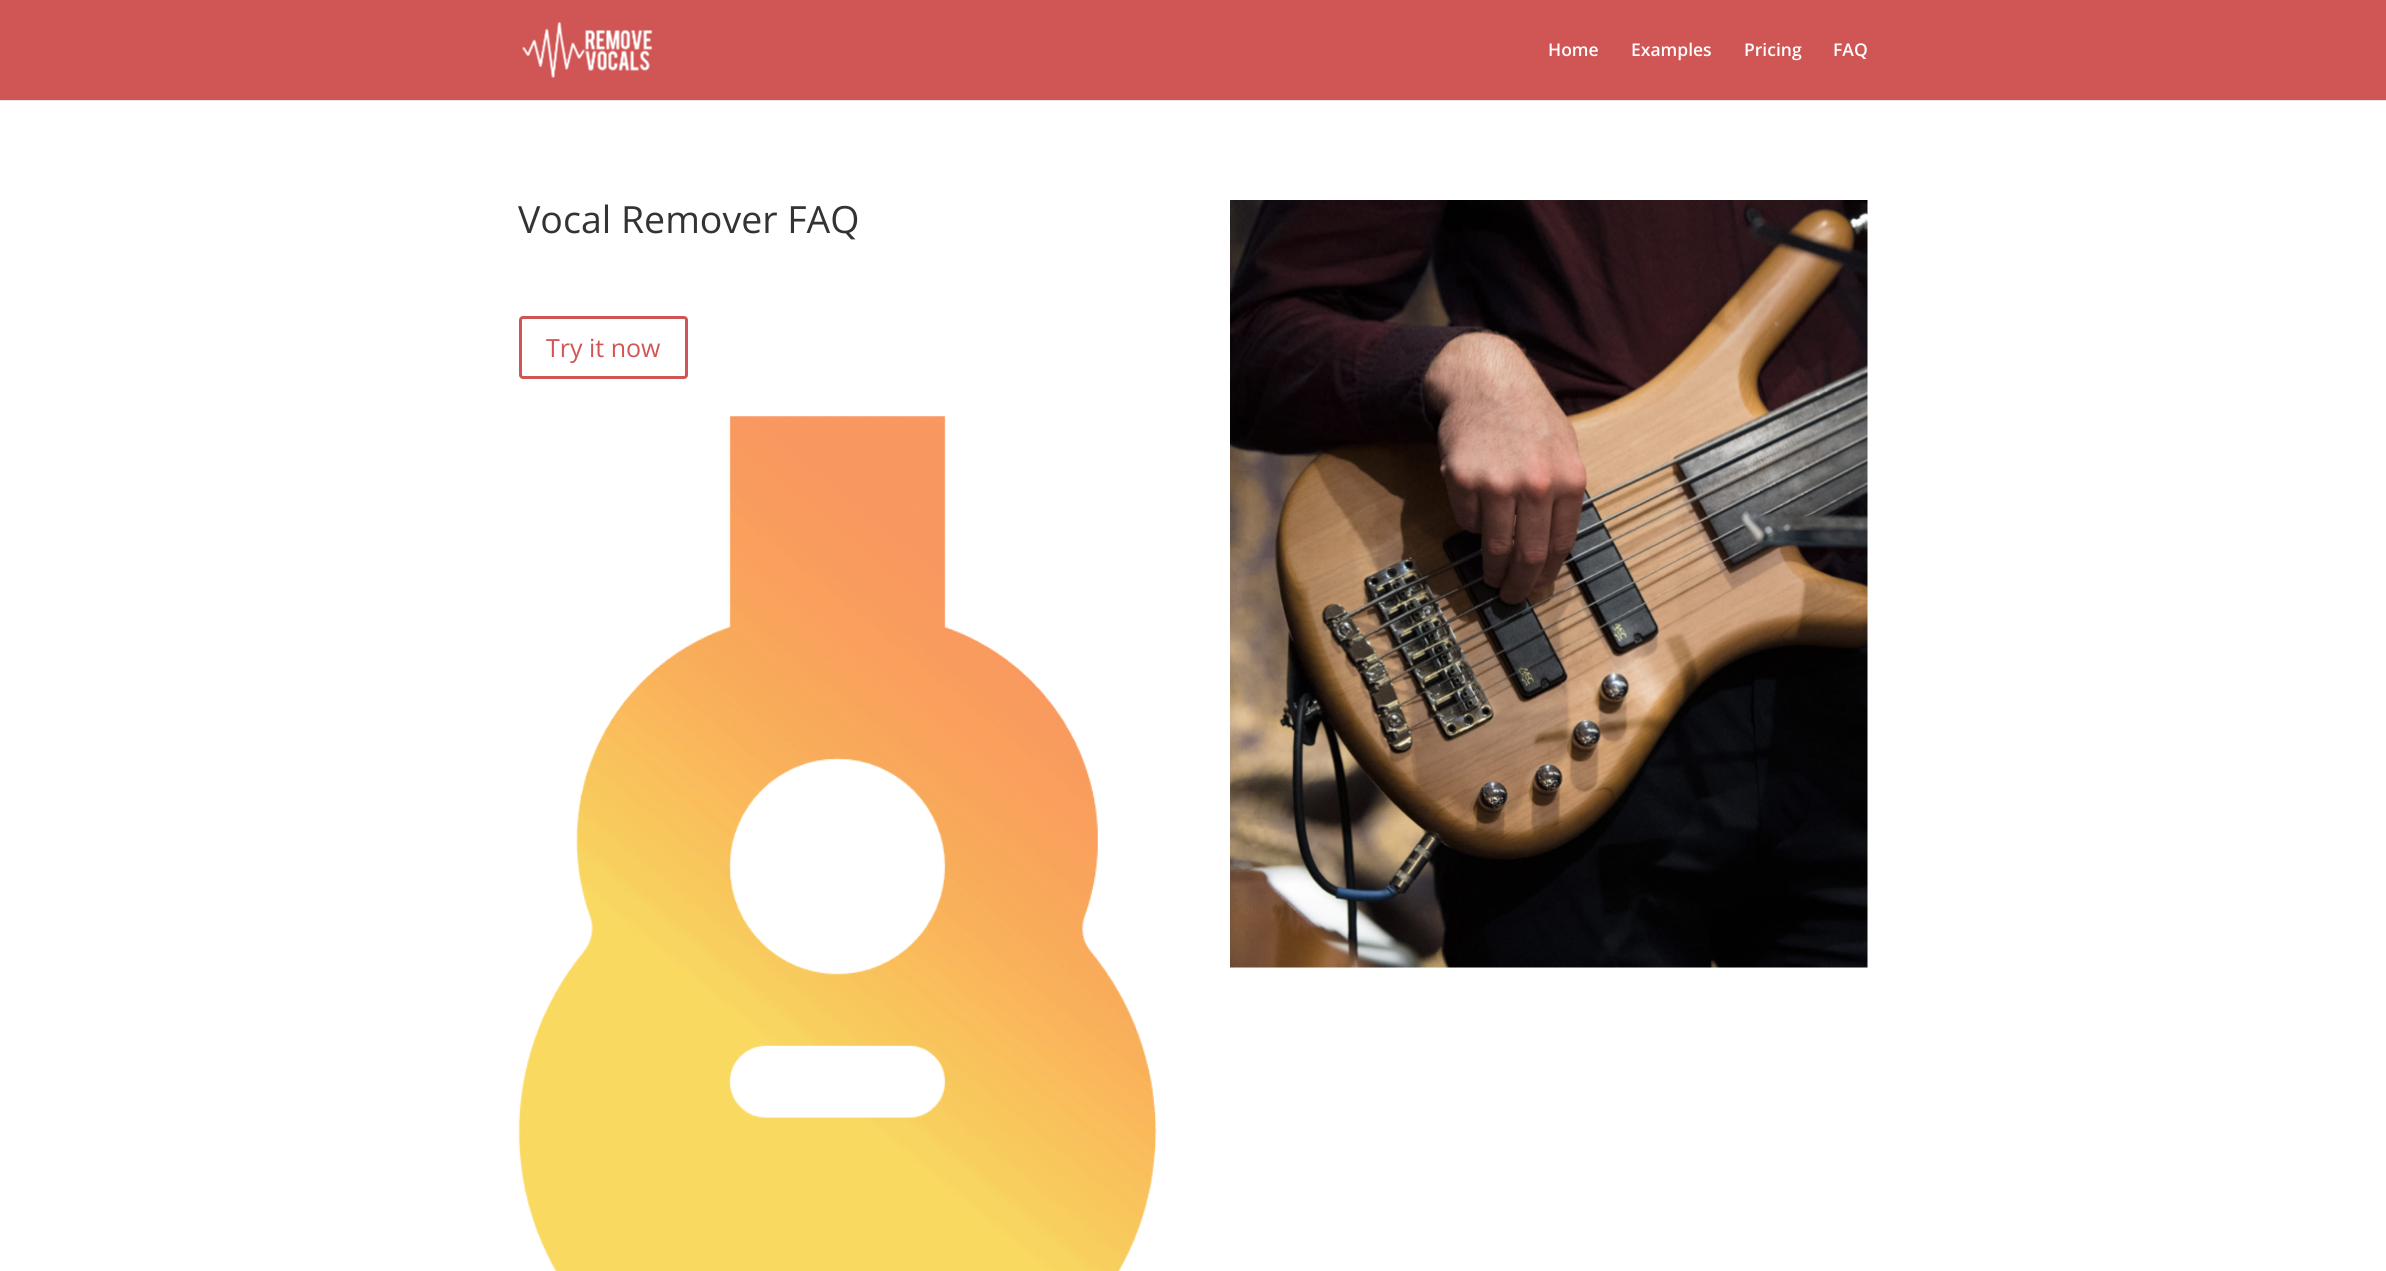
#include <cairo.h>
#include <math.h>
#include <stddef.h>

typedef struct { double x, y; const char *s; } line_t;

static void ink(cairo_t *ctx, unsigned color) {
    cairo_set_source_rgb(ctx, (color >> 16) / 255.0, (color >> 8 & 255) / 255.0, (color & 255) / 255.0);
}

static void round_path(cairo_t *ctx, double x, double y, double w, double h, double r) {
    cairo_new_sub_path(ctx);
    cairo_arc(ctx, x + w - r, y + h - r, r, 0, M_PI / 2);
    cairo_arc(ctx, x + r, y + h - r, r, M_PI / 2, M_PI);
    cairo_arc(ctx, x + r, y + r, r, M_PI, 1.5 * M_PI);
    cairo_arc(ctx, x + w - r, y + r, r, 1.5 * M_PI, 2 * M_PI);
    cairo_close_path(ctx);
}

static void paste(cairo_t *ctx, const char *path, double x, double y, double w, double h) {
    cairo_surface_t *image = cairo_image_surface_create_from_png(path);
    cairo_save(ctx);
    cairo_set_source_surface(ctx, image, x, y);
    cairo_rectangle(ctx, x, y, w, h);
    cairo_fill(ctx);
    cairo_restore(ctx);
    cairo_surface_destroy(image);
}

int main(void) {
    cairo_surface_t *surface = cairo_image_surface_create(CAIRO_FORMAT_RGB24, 2386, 1271);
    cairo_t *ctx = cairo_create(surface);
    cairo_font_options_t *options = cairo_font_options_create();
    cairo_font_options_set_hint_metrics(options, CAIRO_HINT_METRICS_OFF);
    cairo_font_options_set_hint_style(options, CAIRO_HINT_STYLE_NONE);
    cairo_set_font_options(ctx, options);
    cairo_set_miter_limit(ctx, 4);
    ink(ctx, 0xFFFFFF);
    cairo_paint(ctx);
    ink(ctx, 0xE6E6E6);
    cairo_rectangle(ctx, 0, 100, 2386, 1);
    cairo_fill(ctx);
    ink(ctx, 0xD05655);
    cairo_rectangle(ctx, 0, 0, 2386, 100);
    cairo_fill(ctx);
    paste(ctx, "media/1.png", 522, 22, 131, 56);
    cairo_select_font_face(ctx, "Open Sans SemiBold", CAIRO_FONT_SLANT_NORMAL, CAIRO_FONT_WEIGHT_NORMAL);
    cairo_set_font_size(ctx, 17.5);
    ink(ctx, 0xFFFFFF);
    {
        static const line_t items[] = {
            {1548, 56, "Home"},
            {1631, 56, "Examples"},
            {1744, 56, "Pricing"},
            {1833, 56, "FAQ"},
        };
        for (size_t i = 0; i < sizeof items / sizeof *items; i++) {
            cairo_move_to(ctx, items[i].x, items[i].y);
            cairo_show_text(ctx, items[i].s);
        }
    }
    cairo_select_font_face(ctx, "Open Sans", CAIRO_FONT_SLANT_NORMAL, CAIRO_FONT_WEIGHT_NORMAL);
    cairo_set_font_size(ctx, 37.5);
    ink(ctx, 0x333333);
    cairo_move_to(ctx, 518, 233);
    cairo_show_text(ctx, "Vocal Remover FAQ");
    round_path(ctx, 520.5, 317.5, 166, 60, 2.5);
    ink(ctx, 0xD05655);
    cairo_set_line_width(ctx, 3);
    cairo_stroke(ctx);
    cairo_set_font_size(ctx, 25);
    cairo_move_to(ctx, 546, 357);
    cairo_show_text(ctx, "Try it now");
    paste(ctx, "media/2.png", 518, 416, 639, 855);
    paste(ctx, "media/3.png", 1230, 200, 638, 768);
    cairo_surface_write_to_png(surface, "image.png");
    cairo_font_options_destroy(options);
    cairo_destroy(ctx);
    cairo_surface_destroy(surface);
    return 0;
}
